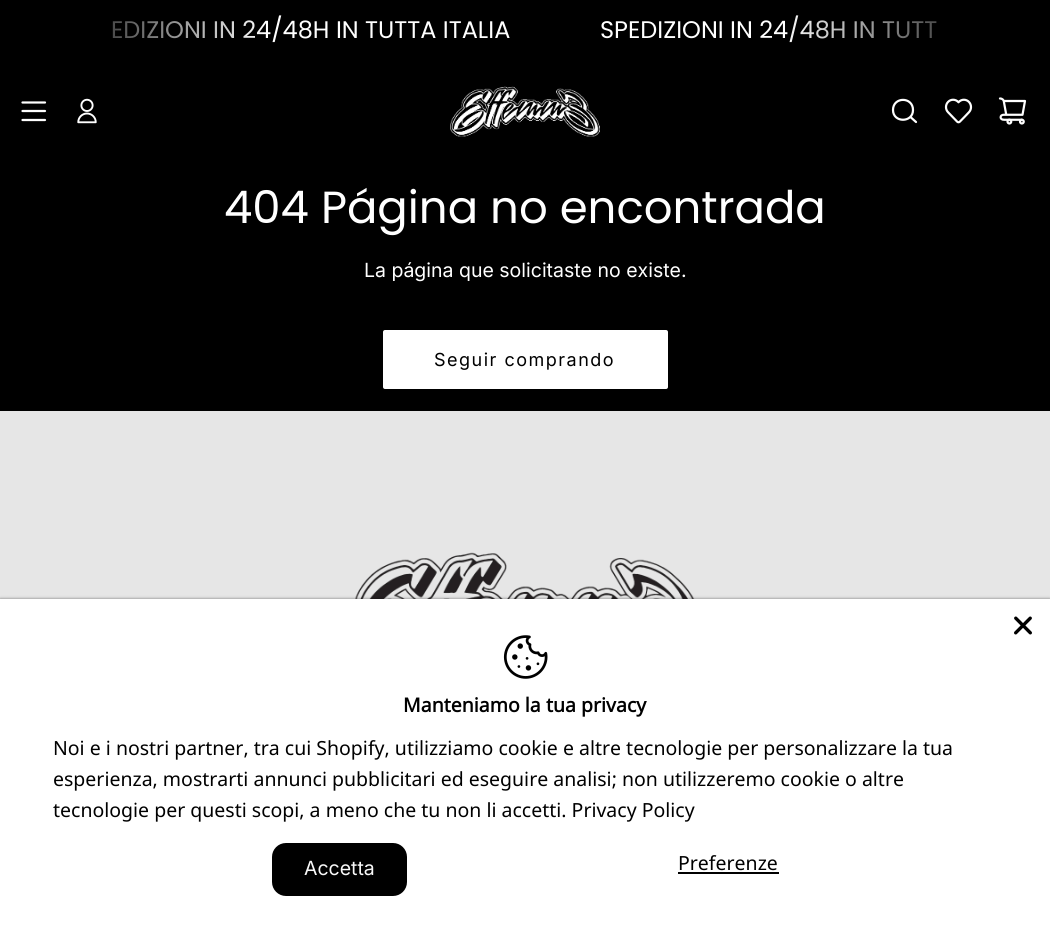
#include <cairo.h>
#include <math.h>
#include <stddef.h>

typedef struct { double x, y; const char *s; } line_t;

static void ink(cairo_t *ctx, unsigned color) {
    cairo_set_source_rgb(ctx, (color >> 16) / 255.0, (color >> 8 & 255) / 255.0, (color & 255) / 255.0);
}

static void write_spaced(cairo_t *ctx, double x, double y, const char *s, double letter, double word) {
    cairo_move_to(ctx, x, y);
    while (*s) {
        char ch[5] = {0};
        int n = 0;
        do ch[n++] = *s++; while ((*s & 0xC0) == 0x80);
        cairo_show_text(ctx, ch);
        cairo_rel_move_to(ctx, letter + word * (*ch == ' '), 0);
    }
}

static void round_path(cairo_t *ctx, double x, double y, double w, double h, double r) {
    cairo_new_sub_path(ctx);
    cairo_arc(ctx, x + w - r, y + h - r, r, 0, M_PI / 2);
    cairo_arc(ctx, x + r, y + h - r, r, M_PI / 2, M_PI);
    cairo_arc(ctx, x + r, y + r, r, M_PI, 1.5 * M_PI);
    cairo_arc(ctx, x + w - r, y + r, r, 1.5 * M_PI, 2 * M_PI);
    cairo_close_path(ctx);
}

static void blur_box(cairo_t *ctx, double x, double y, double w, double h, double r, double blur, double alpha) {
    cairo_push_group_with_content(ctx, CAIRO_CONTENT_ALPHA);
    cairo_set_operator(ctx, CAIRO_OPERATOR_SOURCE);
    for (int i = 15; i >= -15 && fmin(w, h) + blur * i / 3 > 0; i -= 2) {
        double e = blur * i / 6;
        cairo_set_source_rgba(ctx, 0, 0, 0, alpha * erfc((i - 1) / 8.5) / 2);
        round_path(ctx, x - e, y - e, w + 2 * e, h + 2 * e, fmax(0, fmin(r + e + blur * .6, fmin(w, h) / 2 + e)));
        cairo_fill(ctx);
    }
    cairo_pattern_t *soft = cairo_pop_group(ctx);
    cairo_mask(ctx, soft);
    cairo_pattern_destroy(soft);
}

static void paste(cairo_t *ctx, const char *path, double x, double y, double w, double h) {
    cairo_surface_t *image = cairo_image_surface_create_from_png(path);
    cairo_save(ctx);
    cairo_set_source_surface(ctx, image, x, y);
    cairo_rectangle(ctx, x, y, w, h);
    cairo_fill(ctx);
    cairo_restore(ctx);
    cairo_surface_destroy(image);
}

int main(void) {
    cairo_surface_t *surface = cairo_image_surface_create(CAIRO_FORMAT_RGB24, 1050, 935);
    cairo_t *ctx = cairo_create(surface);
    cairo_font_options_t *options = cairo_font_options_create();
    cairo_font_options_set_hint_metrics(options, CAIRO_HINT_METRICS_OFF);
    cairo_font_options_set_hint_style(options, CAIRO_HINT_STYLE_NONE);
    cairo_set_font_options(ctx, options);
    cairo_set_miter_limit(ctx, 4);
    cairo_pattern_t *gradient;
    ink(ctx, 0x000000);
    cairo_paint(ctx);
    cairo_select_font_face(ctx, "Poppins", CAIRO_FONT_SLANT_NORMAL, CAIRO_FONT_WEIGHT_NORMAL);
    cairo_set_font_size(ctx, 24);
    ink(ctx, 0xFFFFFF);
    cairo_move_to(ctx, 111, 38);
    cairo_show_text(ctx, "EDIZIONI IN 24/48H IN TUTTA ITALIA");
    cairo_move_to(ctx, 600, 38);
    cairo_show_text(ctx, "SPEDIZIONI IN 24/48H IN TUTT");
    gradient = cairo_pattern_create_linear(0, 31, 315, 31);
    cairo_pattern_add_color_stop_rgba(gradient, 0.15, 0, 0, 0, 1);
    cairo_pattern_add_color_stop_rgba(gradient, 0.85, 0, 0, 0, 0);
    cairo_set_source(ctx, gradient);
    cairo_pattern_destroy(gradient);
    cairo_rectangle(ctx, 112, 20, 151, 19);
    cairo_fill(ctx);
    gradient = cairo_pattern_create_linear(1050, 31, 735, 31);
    cairo_pattern_add_color_stop_rgba(gradient, 0.15, 0, 0, 0, 1);
    cairo_pattern_add_color_stop_rgba(gradient, 0.85, 0, 0, 0, 0);
    cairo_set_source(ctx, gradient);
    cairo_pattern_destroy(gradient);
    cairo_rectangle(ctx, 787, 15, 150, 27);
    cairo_fill(ctx);
    cairo_new_path(ctx);
    cairo_move_to(ctx, 22.5, 102.5);
    cairo_line_to(ctx, 45, 102.5);
    cairo_move_to(ctx, 22.5, 111);
    cairo_line_to(ctx, 45, 111);
    cairo_move_to(ctx, 22.5, 120);
    cairo_line_to(ctx, 45, 120);
    ink(ctx, 0xFFFFFF);
    cairo_set_line_width(ctx, 2.2);
    cairo_set_line_cap(ctx, CAIRO_LINE_CAP_ROUND);
    cairo_set_line_join(ctx, CAIRO_LINE_JOIN_ROUND);
    cairo_stroke(ctx);
    paste(ctx, "media/1.png", 77, 98, 20, 26);
    paste(ctx, "media/2.png", 450, 86, 150, 51);
    cairo_new_path(ctx);
    cairo_move_to(ctx, 911, 117.5);
    cairo_line_to(ctx, 916, 122);
    cairo_move_to(ctx, 893, 110);
    cairo_curve_to(ctx, 893, 123, 913, 123, 913, 110);
    cairo_curve_to(ctx, 913, 96.5, 893, 96.5, 893, 110);
    cairo_close_path(ctx);
    cairo_stroke(ctx);
    paste(ctx, "media/3.png", 944, 98, 29, 26);
    paste(ctx, "media/4.png", 998, 97, 29, 28);
    cairo_set_font_size(ctx, 45);
    cairo_move_to(ctx, 224, 223);
    cairo_show_text(ctx, "404 Página no encontrada");
    cairo_select_font_face(ctx, "Inter", CAIRO_FONT_SLANT_NORMAL, CAIRO_FONT_WEIGHT_NORMAL);
    cairo_set_font_size(ctx, 19.5);
    cairo_move_to(ctx, 364, 277);
    cairo_show_text(ctx, "La página que solicitaste no existe.");
    round_path(ctx, 383, 330, 285, 59, 2);
    cairo_fill(ctx);
    cairo_set_font_size(ctx, 18);
    ink(ctx, 0x000000);
    write_spaced(ctx, 434, 366, "Seguir comprando", 1.5, 0);
    ink(ctx, 0xE6E6E6);
    cairo_rectangle(ctx, 0, 411, 1050, 188);
    cairo_fill(ctx);
    paste(ctx, "media/5.png", 355, 552, 340, 47);
    ink(ctx, 0x000000);
    blur_box(ctx, 0, 599, 1050, 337, 0, 1.5, 0.5);
    ink(ctx, 0xFFFFFF);
    cairo_rectangle(ctx, 0, 599, 1050, 336);
    cairo_fill(ctx);
    paste(ctx, "media/6.png", 1014, 616, 18, 19);
    paste(ctx, "media/7.png", 503, 635, 45, 44);
    cairo_select_font_face(ctx, "Noto Sans", CAIRO_FONT_SLANT_NORMAL, CAIRO_FONT_WEIGHT_BOLD);
    cairo_set_font_size(ctx, 19.5);
    ink(ctx, 0x000000);
    cairo_move_to(ctx, 403, 712);
    cairo_show_text(ctx, "Manteniamo la tua privacy");
    cairo_select_font_face(ctx, "Noto Sans", CAIRO_FONT_SLANT_NORMAL, CAIRO_FONT_WEIGHT_NORMAL);
    {
        static const line_t items[] = {
            {53, 755, "Noi e i nostri partner, tra cui Shopify, utilizziamo cookie e altre tecnologie per personalizzare la tua"},
            {53, 786, "esperienza, mostrarti annunci pubblicitari ed eseguire analisi; non utilizzeremo cookie o altre"},
            {53, 817, "tecnologie per questi scopi, a meno che tu non li accetti. Privacy Policy"},
        };
        for (size_t i = 0; i < sizeof items / sizeof *items; i++) {
            cairo_move_to(ctx, items[i].x, items[i].y);
            cairo_show_text(ctx, items[i].s);
        }
    }
    round_path(ctx, 272, 843, 135, 53, 14);
    cairo_fill(ctx);
    cairo_select_font_face(ctx, "Inter", CAIRO_FONT_SLANT_NORMAL, CAIRO_FONT_WEIGHT_NORMAL);
    ink(ctx, 0xF8F8F8);
    cairo_move_to(ctx, 304, 875);
    cairo_show_text(ctx, "Accetta");
    cairo_select_font_face(ctx, "Noto Sans", CAIRO_FONT_SLANT_NORMAL, CAIRO_FONT_WEIGHT_NORMAL);
    ink(ctx, 0x000000);
    cairo_move_to(ctx, 678, 870);
    cairo_show_text(ctx, "Preferenze");
    cairo_rectangle(ctx, 678, 872, 101, 2);
    cairo_fill(ctx);
    cairo_surface_write_to_png(surface, "image.png");
    cairo_font_options_destroy(options);
    cairo_destroy(ctx);
    cairo_surface_destroy(surface);
    return 0;
}
